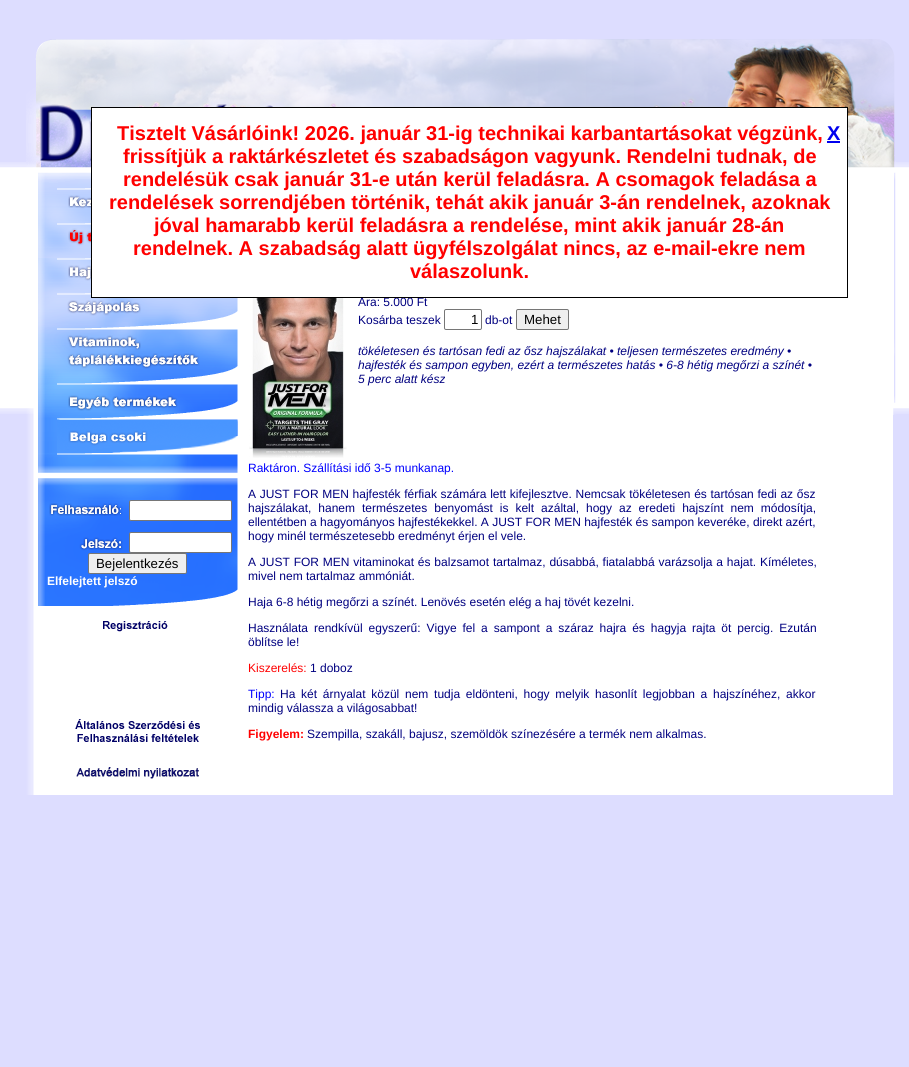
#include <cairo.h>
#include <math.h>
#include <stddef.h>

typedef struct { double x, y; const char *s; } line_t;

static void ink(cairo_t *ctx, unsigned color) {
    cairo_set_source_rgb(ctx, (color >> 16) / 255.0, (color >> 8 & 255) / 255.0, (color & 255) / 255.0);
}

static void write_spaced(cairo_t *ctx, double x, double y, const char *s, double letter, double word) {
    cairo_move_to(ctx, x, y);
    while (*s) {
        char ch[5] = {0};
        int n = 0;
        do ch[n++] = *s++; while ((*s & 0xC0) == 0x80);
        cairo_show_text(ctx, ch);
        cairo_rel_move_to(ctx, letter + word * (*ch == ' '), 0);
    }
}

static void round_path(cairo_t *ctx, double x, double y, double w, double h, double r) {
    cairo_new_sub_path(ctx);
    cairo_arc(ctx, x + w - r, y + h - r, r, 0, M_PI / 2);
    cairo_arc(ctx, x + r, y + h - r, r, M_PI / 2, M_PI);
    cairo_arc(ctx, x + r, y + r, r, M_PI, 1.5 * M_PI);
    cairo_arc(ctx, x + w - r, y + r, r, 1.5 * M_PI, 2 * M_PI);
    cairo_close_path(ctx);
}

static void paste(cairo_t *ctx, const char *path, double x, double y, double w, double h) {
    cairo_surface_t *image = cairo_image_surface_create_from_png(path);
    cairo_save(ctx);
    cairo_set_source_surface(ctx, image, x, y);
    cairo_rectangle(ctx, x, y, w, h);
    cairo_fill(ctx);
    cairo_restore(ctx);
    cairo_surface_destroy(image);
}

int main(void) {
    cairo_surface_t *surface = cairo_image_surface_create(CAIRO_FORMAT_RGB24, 909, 1067);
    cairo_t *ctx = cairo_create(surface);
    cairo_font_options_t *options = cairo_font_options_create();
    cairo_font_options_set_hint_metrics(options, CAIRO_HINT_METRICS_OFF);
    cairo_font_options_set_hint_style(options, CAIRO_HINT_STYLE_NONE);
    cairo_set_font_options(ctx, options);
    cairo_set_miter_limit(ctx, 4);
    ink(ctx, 0xDDDDFF);
    cairo_paint(ctx);
    paste(ctx, "media/1.png", 0, 162, 909, 16);
    paste(ctx, "media/2.png", 26, 39, 870, 139);
    paste(ctx, "media/3.png", 726, 41, 168, 127);
    paste(ctx, "media/4.png", 0, 408, 909, 6);
    ink(ctx, 0xFFFFFF);
    cairo_rectangle(ctx, 0, 178, 909, 230);
    cairo_fill(ctx);
    paste(ctx, "media/11.png", 38, 293, 200, 35);
    cairo_select_font_face(ctx, "Liberation Sans", CAIRO_FONT_SLANT_NORMAL, CAIRO_FONT_WEIGHT_NORMAL);
    cairo_set_font_size(ctx, 12);
    ink(ctx, 0x000080);
    cairo_move_to(ctx, 358, 306);
    cairo_show_text(ctx, "Ára: 5.000 Ft");
    ink(ctx, 0xFFFFFF);
    cairo_rectangle(ctx, 91.5, 107.5, 756, 190);
    cairo_fill_preserve(ctx);
    ink(ctx, 0x000000);
    cairo_set_line_width(ctx, 1);
    cairo_stroke(ctx);
    cairo_select_font_face(ctx, "Liberation Sans", CAIRO_FONT_SLANT_NORMAL, CAIRO_FONT_WEIGHT_BOLD);
    cairo_set_font_size(ctx, 20);
    ink(ctx, 0xFF0000);
    cairo_move_to(ctx, 117, 140);
    cairo_show_text(ctx, "Tisztelt Vásárlóink! 2026. január 31-ig technikai karbantartásokat végzünk,");
    ink(ctx, 0x0000EE);
    cairo_move_to(ctx, 827, 140);
    cairo_show_text(ctx, "X");
    cairo_rectangle(ctx, 827, 141, 13, 2);
    cairo_fill(ctx);
    ink(ctx, 0xFF0000);
    {
        static const line_t items[] = {
            {123, 163, "frissítjük a raktárkészletet és szabadságon vagyunk. Rendelni tudnak, de"},
            {123, 186, "rendelésük csak január 31-e után kerül feladásra. A csomagok feladása a"},
            {109, 209, "rendelések sorrendjében történik, tehát akik január 3-án rendelnek, azoknak"},
            {154, 232, "jóval hamarabb kerül feladásra a rendelése, mint akik január 28-án"},
            {133, 255, "rendelnek. A szabadság alatt ügyfélszolgálat nincs, az e-mail-ekre nem"},
            {410, 278, "válaszolunk."},
        };
        for (size_t i = 0; i < sizeof items / sizeof *items; i++) {
            cairo_move_to(ctx, items[i].x, items[i].y);
            cairo_show_text(ctx, items[i].s);
        }
    }
    paste(ctx, "media/5.png", 26, 178, 11, 617);
    paste(ctx, "media/6.png", 26, 178, 8, 236);
    paste(ctx, "media/7.png", 893, 178, 3, 237);
    ink(ctx, 0xFFFFFF);
    cairo_rectangle(ctx, 37, 408, 856, 387);
    cairo_fill(ctx);
    paste(ctx, "media/8.png", 38, 178, 53, 45);
    paste(ctx, "media/9.png", 38, 223, 53, 35);
    paste(ctx, "media/10.png", 38, 258, 53, 35);
    paste(ctx, "media/12.png", 38, 328, 200, 55);
    paste(ctx, "media/13.png", 38, 383, 200, 35);
    paste(ctx, "media/14.png", 38, 418, 200, 35);
    paste(ctx, "media/15.png", 38, 453, 200, 20);
    paste(ctx, "media/16.png", 38, 478, 200, 128);
    round_path(ctx, 129.5, 500.5, 102, 20, 1.5);
    cairo_fill_preserve(ctx);
    ink(ctx, 0x767676);
    cairo_stroke(ctx);
    ink(ctx, 0xFFFFFF);
    round_path(ctx, 129.5, 532.5, 102, 20, 1.5);
    cairo_fill_preserve(ctx);
    ink(ctx, 0x767676);
    cairo_stroke(ctx);
    ink(ctx, 0xEFEFEF);
    round_path(ctx, 88.5, 553.5, 98, 20, 1.5);
    cairo_fill_preserve(ctx);
    ink(ctx, 0x767676);
    cairo_stroke(ctx);
    cairo_select_font_face(ctx, "Liberation Sans", CAIRO_FONT_SLANT_NORMAL, CAIRO_FONT_WEIGHT_NORMAL);
    cairo_set_font_size(ctx, 13.25);
    ink(ctx, 0x000000);
    cairo_move_to(ctx, 96, 568);
    cairo_show_text(ctx, "Bejelentkezés");
    cairo_select_font_face(ctx, "Liberation Sans", CAIRO_FONT_SLANT_NORMAL, CAIRO_FONT_WEIGHT_BOLD);
    cairo_set_font_size(ctx, 12);
    ink(ctx, 0xFFFFFF);
    cairo_move_to(ctx, 47, 585);
    cairo_show_text(ctx, "Elfelejtett jelszó");
    paste(ctx, "media/17.png", 103, 621, 65, 11);
    paste(ctx, "media/18.png", 75, 719, 125, 23);
    paste(ctx, "media/19.png", 76, 767, 123, 12);
    paste(ctx, "media/20.png", 249, 298, 98, 160);
    cairo_select_font_face(ctx, "Liberation Sans", CAIRO_FONT_SLANT_NORMAL, CAIRO_FONT_WEIGHT_NORMAL);
    ink(ctx, 0x000080);
    cairo_move_to(ctx, 358, 324);
    cairo_show_text(ctx, "Kosárba teszek");
    round_path(ctx, 444.5, 309.5, 37, 20, 1.5);
    ink(ctx, 0x767676);
    cairo_stroke(ctx);
    cairo_set_font_size(ctx, 13.25);
    ink(ctx, 0x000000);
    cairo_move_to(ctx, 471, 324);
    cairo_show_text(ctx, "1");
    cairo_set_font_size(ctx, 12);
    ink(ctx, 0x000080);
    cairo_move_to(ctx, 485, 324);
    cairo_show_text(ctx, "db-ot");
    ink(ctx, 0xEFEFEF);
    round_path(ctx, 516.5, 309.5, 52, 20, 1.5);
    cairo_fill_preserve(ctx);
    ink(ctx, 0x767676);
    cairo_stroke(ctx);
    cairo_set_font_size(ctx, 13.25);
    ink(ctx, 0x000000);
    cairo_move_to(ctx, 524, 324);
    cairo_show_text(ctx, "Mehet");
    cairo_select_font_face(ctx, "Liberation Sans", CAIRO_FONT_SLANT_ITALIC, CAIRO_FONT_WEIGHT_NORMAL);
    cairo_set_font_size(ctx, 12);
    ink(ctx, 0x000080);
    {
        static const line_t items[] = {
            {358, 355, "tökéletesen és tartósan fedi az ősz hajszálakat • teljesen természetes eredmény •"},
            {358, 369, "hajfesték és sampon egyben, ezért a természetes hatás • 6-8 hétig megőrzi a színét •"},
            {358, 383, "5 perc alatt kész"},
        };
        for (size_t i = 0; i < sizeof items / sizeof *items; i++) {
            cairo_move_to(ctx, items[i].x, items[i].y);
            cairo_show_text(ctx, items[i].s);
        }
    }
    cairo_select_font_face(ctx, "Liberation Sans", CAIRO_FONT_SLANT_NORMAL, CAIRO_FONT_WEIGHT_NORMAL);
    ink(ctx, 0x0000FF);
    cairo_move_to(ctx, 248, 472);
    cairo_show_text(ctx, "Raktáron. Szállítási idő 3-5 munkanap.");
    ink(ctx, 0x000080);
    write_spaced(ctx, 248, 498, "A JUST FOR MEN hajfesték férfiak számára lett kifejlesztve. Nemcsak tökéletesen és tartósan fedi az ősz", 0, 0.3);
    write_spaced(ctx, 248, 512, "hajszálakat, hanem természetes benyomást is kelt azáltal, hogy az eredeti hajszínt nem módosítja,", 0, 3.6);
    cairo_move_to(ctx, 248, 526);
    cairo_show_text(ctx, "ellentétben a hagyományos hajfestékekkel. A JUST FOR MEN hajfesték és sampon keveréke, direkt azért,");
    cairo_move_to(ctx, 248, 540);
    cairo_show_text(ctx, "hogy minél természetesebb eredményt érjen el vele.");
    write_spaced(ctx, 248, 566, "A JUST FOR MEN vitaminokat és balzsamot tartalmaz, dúsabbá, fiatalabbá varázsolja a hajat. Kíméletes,", 0, 0.5);
    cairo_move_to(ctx, 248, 580);
    cairo_show_text(ctx, "mivel nem tartalmaz ammóniát.");
    cairo_move_to(ctx, 248, 606);
    cairo_show_text(ctx, "Haja 6-8 hétig megőrzi a színét. Lenövés esetén elég a haj tövét kezelni.");
    write_spaced(ctx, 248, 632, "Használata rendkívül egyszerű: Vigye fel a sampont a száraz hajra és hagyja rajta öt percig. Ezután", 0, 2.6);
    cairo_move_to(ctx, 248, 646);
    cairo_show_text(ctx, "öblítse le!");
    ink(ctx, 0xFF0000);
    cairo_move_to(ctx, 248, 672);
    cairo_show_text(ctx, "Kiszerelés:");
    ink(ctx, 0x000080);
    cairo_move_to(ctx, 310, 672);
    cairo_show_text(ctx, "1 doboz");
    ink(ctx, 0x0000FF);
    cairo_move_to(ctx, 248, 698);
    cairo_show_text(ctx, "Tipp:");
    ink(ctx, 0x000080);
    write_spaced(ctx, 280, 698, "Ha két árnyalat közül nem tudja eldönteni, hogy melyik hasonlít legjobban a hajszínéhez, akkor", 0, 2.4);
    cairo_move_to(ctx, 248, 712);
    cairo_show_text(ctx, "mindig válassza a világosabbat!");
    cairo_select_font_face(ctx, "Liberation Sans", CAIRO_FONT_SLANT_NORMAL, CAIRO_FONT_WEIGHT_BOLD);
    ink(ctx, 0xFF0000);
    cairo_move_to(ctx, 248, 738);
    cairo_show_text(ctx, "Figyelem:");
    cairo_select_font_face(ctx, "Liberation Sans", CAIRO_FONT_SLANT_NORMAL, CAIRO_FONT_WEIGHT_NORMAL);
    ink(ctx, 0x000080);
    cairo_move_to(ctx, 307, 738);
    cairo_show_text(ctx, "Szempilla, szakáll, bajusz, szemöldök színezésére a termék nem alkalmas.");
    cairo_surface_write_to_png(surface, "image.png");
    cairo_font_options_destroy(options);
    cairo_destroy(ctx);
    cairo_surface_destroy(surface);
    return 0;
}
